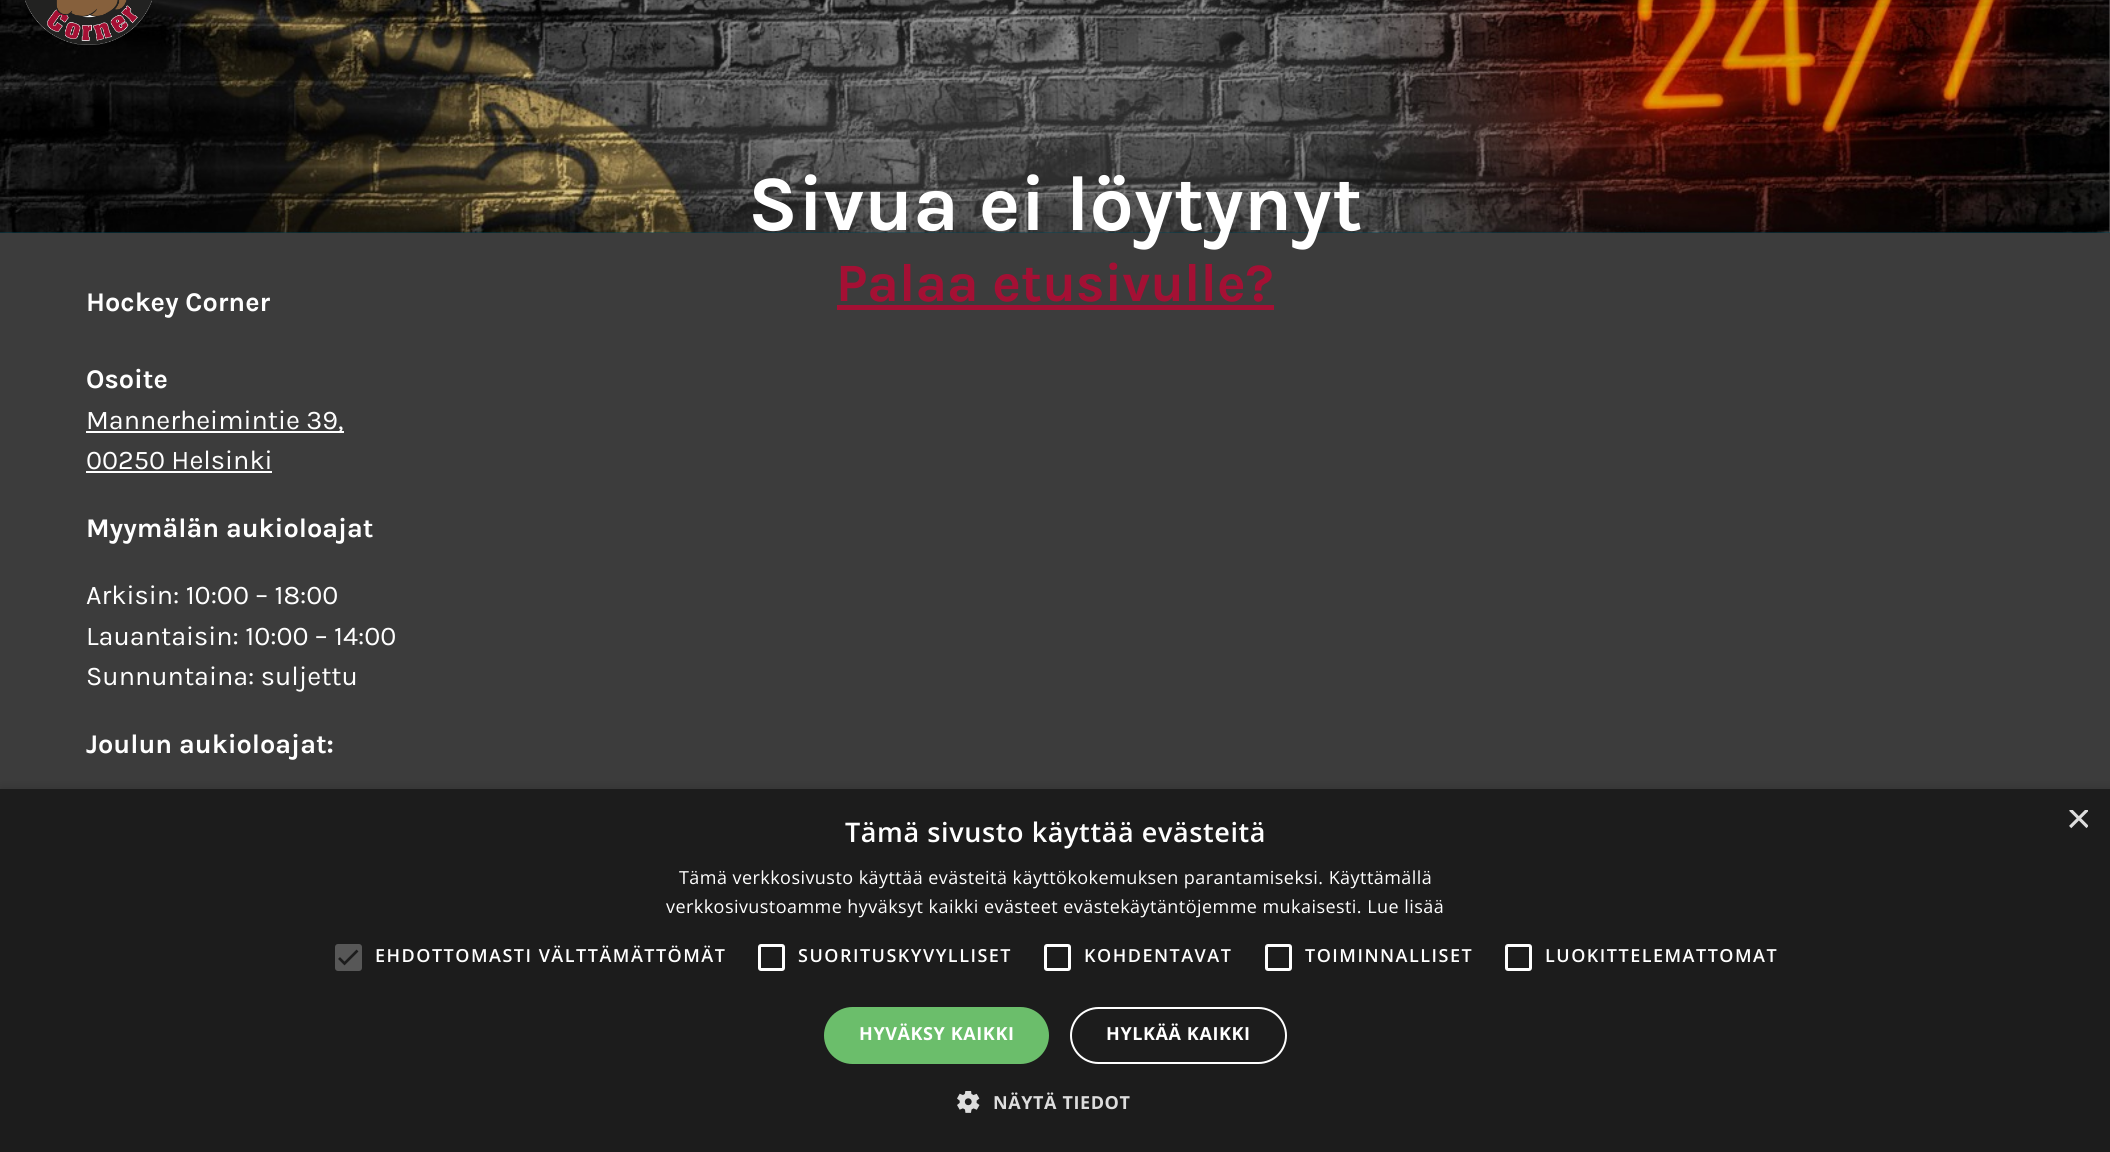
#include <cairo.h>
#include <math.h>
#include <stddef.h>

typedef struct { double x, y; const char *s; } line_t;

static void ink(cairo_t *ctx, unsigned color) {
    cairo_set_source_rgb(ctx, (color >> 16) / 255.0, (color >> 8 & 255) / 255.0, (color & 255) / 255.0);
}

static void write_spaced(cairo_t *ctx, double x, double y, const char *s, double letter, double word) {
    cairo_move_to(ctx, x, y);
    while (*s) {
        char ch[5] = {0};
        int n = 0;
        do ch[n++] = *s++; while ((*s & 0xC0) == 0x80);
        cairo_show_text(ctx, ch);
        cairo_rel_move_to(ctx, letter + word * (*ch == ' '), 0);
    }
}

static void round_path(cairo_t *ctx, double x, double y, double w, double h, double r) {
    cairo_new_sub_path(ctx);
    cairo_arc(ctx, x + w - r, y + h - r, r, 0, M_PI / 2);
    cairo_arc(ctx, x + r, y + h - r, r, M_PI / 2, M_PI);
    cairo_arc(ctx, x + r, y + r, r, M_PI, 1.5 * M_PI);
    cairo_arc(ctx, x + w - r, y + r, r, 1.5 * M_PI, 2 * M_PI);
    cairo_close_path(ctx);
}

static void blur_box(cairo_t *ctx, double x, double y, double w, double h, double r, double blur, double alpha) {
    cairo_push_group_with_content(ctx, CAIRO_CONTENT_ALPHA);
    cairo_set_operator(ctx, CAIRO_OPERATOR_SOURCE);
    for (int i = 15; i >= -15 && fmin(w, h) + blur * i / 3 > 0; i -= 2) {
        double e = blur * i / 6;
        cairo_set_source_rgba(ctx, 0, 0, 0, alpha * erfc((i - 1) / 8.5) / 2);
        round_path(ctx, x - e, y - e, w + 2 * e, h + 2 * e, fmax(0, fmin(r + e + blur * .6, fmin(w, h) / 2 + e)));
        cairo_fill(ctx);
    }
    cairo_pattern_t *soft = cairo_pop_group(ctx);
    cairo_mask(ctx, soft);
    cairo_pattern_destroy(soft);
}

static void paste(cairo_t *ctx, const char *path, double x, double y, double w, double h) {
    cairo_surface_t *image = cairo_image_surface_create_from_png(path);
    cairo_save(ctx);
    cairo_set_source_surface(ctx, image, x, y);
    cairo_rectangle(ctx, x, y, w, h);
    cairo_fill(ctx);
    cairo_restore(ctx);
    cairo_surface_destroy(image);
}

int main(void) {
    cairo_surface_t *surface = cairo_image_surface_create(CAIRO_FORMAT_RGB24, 2110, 1152);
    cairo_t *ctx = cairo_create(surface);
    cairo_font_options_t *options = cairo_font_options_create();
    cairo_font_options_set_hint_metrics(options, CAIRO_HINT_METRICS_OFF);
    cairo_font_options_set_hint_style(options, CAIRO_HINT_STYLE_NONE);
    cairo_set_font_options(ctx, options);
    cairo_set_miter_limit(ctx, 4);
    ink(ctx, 0x044554);
    cairo_paint(ctx);
    paste(ctx, "media/2.png", 0, 0, 2110, 233);
    paste(ctx, "media/1.png", 25, 0, 127, 45);
    ink(ctx, 0x3C3C3C);
    cairo_rectangle(ctx, 0, 233, 2110, 556);
    cairo_fill(ctx);
    cairo_select_font_face(ctx, "Karla", CAIRO_FONT_SLANT_NORMAL, CAIRO_FONT_WEIGHT_BOLD);
    cairo_set_font_size(ctx, 78.25);
    ink(ctx, 0xFFFFFF);
    cairo_move_to(ctx, 748, 230);
    cairo_show_text(ctx, "Sivua ei löytynyt");
    cairo_set_font_size(ctx, 54);
    ink(ctx, 0xA41034);
    cairo_move_to(ctx, 836, 301);
    cairo_show_text(ctx, "Palaa etusivulle?");
    cairo_rectangle(ctx, 837, 305, 437, 5);
    cairo_fill(ctx);
    cairo_set_font_size(ctx, 27);
    ink(ctx, 0xFFFFFF);
    cairo_move_to(ctx, 86, 311);
    cairo_show_text(ctx, "Hockey Corner");
    cairo_move_to(ctx, 86, 388);
    cairo_show_text(ctx, "Osoite");
    cairo_rectangle(ctx, 86, 431, 258, 2);
    cairo_fill(ctx);
    cairo_select_font_face(ctx, "Karla", CAIRO_FONT_SLANT_NORMAL, CAIRO_FONT_WEIGHT_NORMAL);
    cairo_move_to(ctx, 86, 429);
    cairo_show_text(ctx, "Mannerheimintie 39,");
    cairo_move_to(ctx, 86, 469);
    cairo_show_text(ctx, "00250 Helsinki");
    cairo_rectangle(ctx, 86, 471, 186, 2);
    cairo_fill(ctx);
    cairo_select_font_face(ctx, "Karla", CAIRO_FONT_SLANT_NORMAL, CAIRO_FONT_WEIGHT_BOLD);
    cairo_move_to(ctx, 86, 537);
    cairo_show_text(ctx, "Myymälän aukioloajat");
    cairo_select_font_face(ctx, "Karla", CAIRO_FONT_SLANT_NORMAL, CAIRO_FONT_WEIGHT_NORMAL);
    {
        static const line_t items[] = {
            {86, 604, "Arkisin: 10:00 – 18:00"},
            {86, 645, "Lauantaisin: 10:00 – 14:00"},
            {86, 685, "Sunnuntaina: suljettu"},
        };
        for (size_t i = 0; i < sizeof items / sizeof *items; i++) {
            cairo_move_to(ctx, items[i].x, items[i].y);
            cairo_show_text(ctx, items[i].s);
        }
    }
    cairo_select_font_face(ctx, "Karla", CAIRO_FONT_SLANT_NORMAL, CAIRO_FONT_WEIGHT_BOLD);
    cairo_move_to(ctx, 86, 753);
    cairo_show_text(ctx, "Joulun aukioloajat:");
    ink(ctx, 0x000000);
    blur_box(ctx, 2, 792, 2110, 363, 0, 6, 0.35);
    ink(ctx, 0x1C1C1C);
    cairo_rectangle(ctx, 0, 789, 2110, 363);
    cairo_fill(ctx);
    cairo_select_font_face(ctx, "Open Sans SemiBold", CAIRO_FONT_SLANT_NORMAL, CAIRO_FONT_WEIGHT_NORMAL);
    ink(ctx, 0xFFFFFF);
    write_spaced(ctx, 845, 842, "Tämä sivusto käyttää evästeitä", 0.6, 0);
    cairo_save(ctx);
    cairo_rectangle(ctx, 2066, 810, 22, 23);
    cairo_clip(ctx);
    cairo_select_font_face(ctx, "Liberation Sans", CAIRO_FONT_SLANT_NORMAL, CAIRO_FONT_WEIGHT_NORMAL);
    cairo_set_font_size(ctx, 44);
    ink(ctx, 0xDDDDDD);
    cairo_move_to(ctx, 2066, 833);
    cairo_show_text(ctx, "×");
    cairo_restore(ctx);
    cairo_select_font_face(ctx, "Open Sans", CAIRO_FONT_SLANT_NORMAL, CAIRO_FONT_WEIGHT_NORMAL);
    cairo_set_font_size(ctx, 18);
    write_spaced(ctx, 679, 884, "Tämä verkkosivusto käyttää evästeitä käyttökokemuksen parantamiseksi. Käyttämällä", 0.45, 0);
    write_spaced(ctx, 666, 913, "verkkosivustoamme hyväksyt kaikki evästeet evästekäytäntöjemme mukaisesti. Lue lisää", 0.45, 0);
    ink(ctx, 0x575757);
    round_path(ctx, 335, 944, 27, 27, 3);
    cairo_fill(ctx);
    cairo_new_path(ctx);
    cairo_move_to(ctx, 339, 958);
    cairo_line_to(ctx, 344.5, 963.5);
    cairo_line_to(ctx, 357.5, 950.5);
    ink(ctx, 0x1C1C1C);
    cairo_set_line_width(ctx, 2.7);
    cairo_stroke(ctx);
    cairo_select_font_face(ctx, "Open Sans SemiBold", CAIRO_FONT_SLANT_NORMAL, CAIRO_FONT_WEIGHT_NORMAL);
    ink(ctx, 0xFFFFFF);
    write_spaced(ctx, 375, 962, "EHDOTTOMASTI VÄLTTÄMÄTTÖMÄT", 1.5, 0);
    round_path(ctx, 759.5, 945.5, 24, 24, 1.5);
    cairo_set_line_width(ctx, 3);
    cairo_stroke(ctx);
    write_spaced(ctx, 798, 962, "SUORITUSKYVYLLISET", 1.5, 0);
    round_path(ctx, 1045.5, 945.5, 24, 24, 1.5);
    cairo_stroke(ctx);
    write_spaced(ctx, 1084, 962, "KOHDENTAVAT", 1.5, 0);
    round_path(ctx, 1266.5, 945.5, 24, 24, 1.5);
    cairo_stroke(ctx);
    write_spaced(ctx, 1305, 962, "TOIMINNALLISET", 1.5, 0);
    round_path(ctx, 1506.5, 945.5, 24, 24, 1.5);
    cairo_stroke(ctx);
    write_spaced(ctx, 1545, 962, "LUOKITTELEMATTOMAT", 1.5, 0);
    ink(ctx, 0x6BBE6B);
    round_path(ctx, 824, 1007, 225, 57, 28.5);
    cairo_fill(ctx);
    cairo_select_font_face(ctx, "Open Sans", CAIRO_FONT_SLANT_NORMAL, CAIRO_FONT_WEIGHT_BOLD);
    ink(ctx, 0xFFFFFF);
    write_spaced(ctx, 859, 1040, "HYVÄKSY KAIKKI", 0.6, 0);
    round_path(ctx, 1071, 1008, 215, 55, 27.5);
    cairo_set_line_width(ctx, 2);
    cairo_stroke(ctx);
    write_spaced(ctx, 1106, 1040, "HYLKÄÄ KAIKKI", 0.6, 0);
    paste(ctx, "media/3.png", 957, 1091, 23, 22);
    ink(ctx, 0xDDDDDD);
    write_spaced(ctx, 993, 1109, "NÄYTÄ TIEDOT", 0.6, 0);
    cairo_surface_write_to_png(surface, "image.png");
    cairo_font_options_destroy(options);
    cairo_destroy(ctx);
    cairo_surface_destroy(surface);
    return 0;
}
